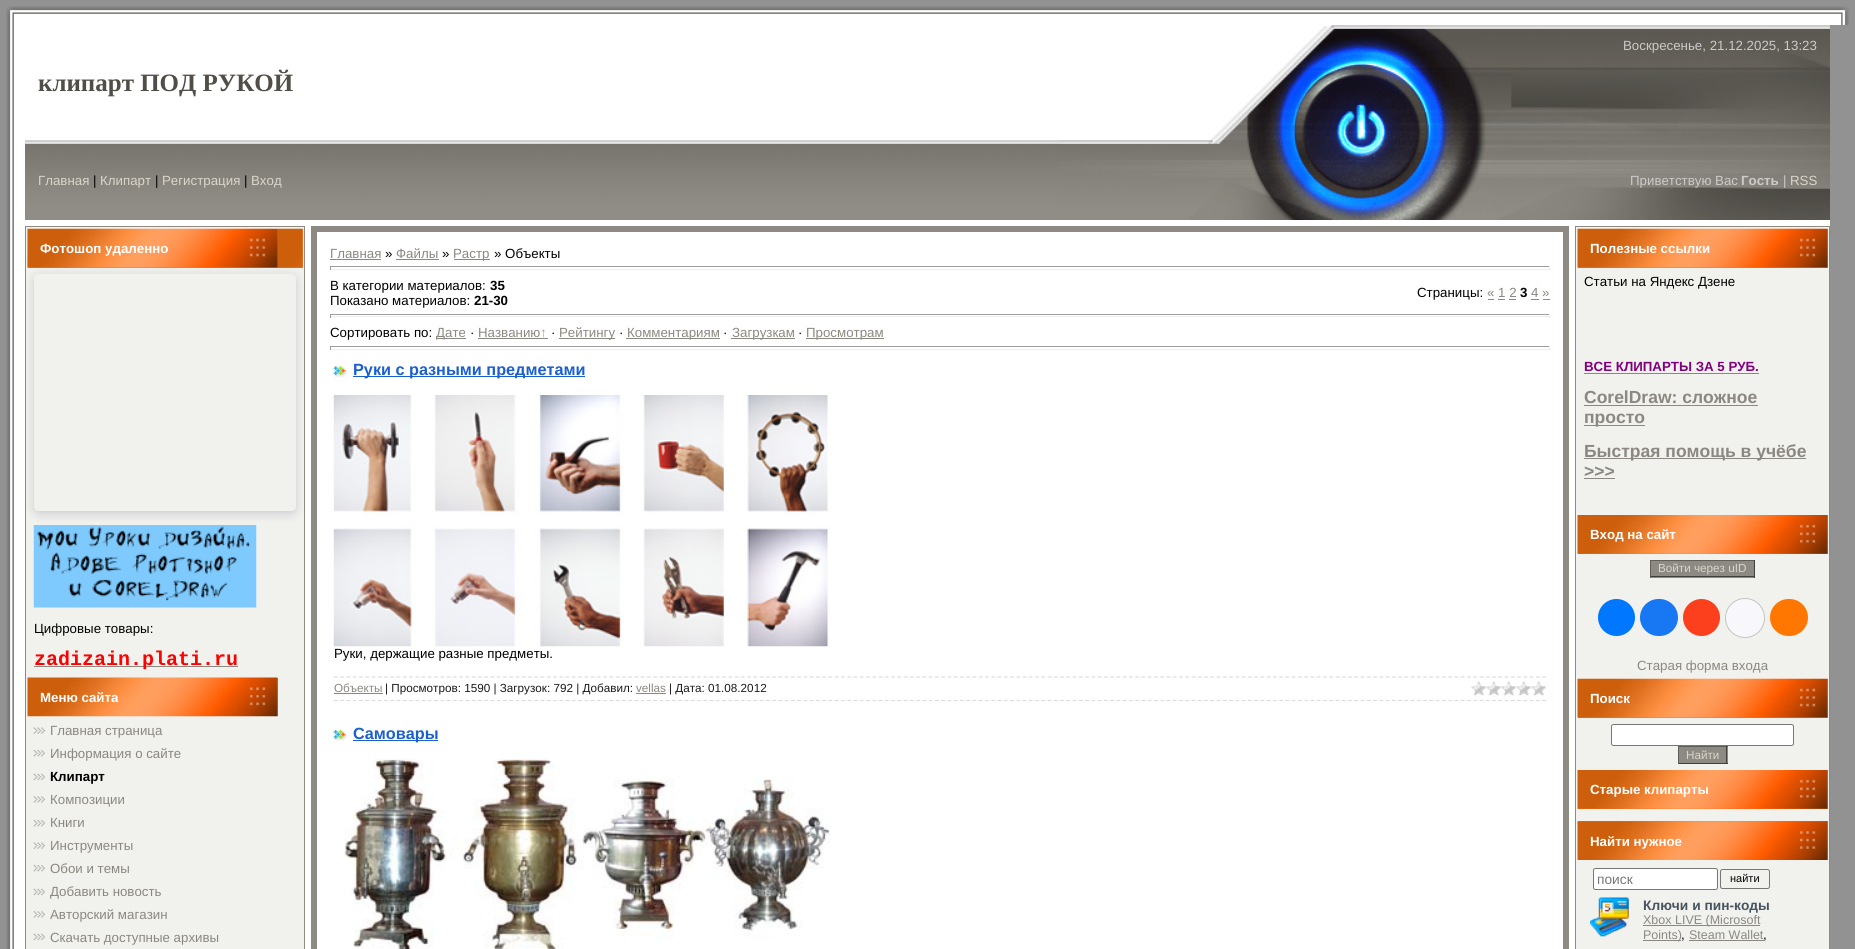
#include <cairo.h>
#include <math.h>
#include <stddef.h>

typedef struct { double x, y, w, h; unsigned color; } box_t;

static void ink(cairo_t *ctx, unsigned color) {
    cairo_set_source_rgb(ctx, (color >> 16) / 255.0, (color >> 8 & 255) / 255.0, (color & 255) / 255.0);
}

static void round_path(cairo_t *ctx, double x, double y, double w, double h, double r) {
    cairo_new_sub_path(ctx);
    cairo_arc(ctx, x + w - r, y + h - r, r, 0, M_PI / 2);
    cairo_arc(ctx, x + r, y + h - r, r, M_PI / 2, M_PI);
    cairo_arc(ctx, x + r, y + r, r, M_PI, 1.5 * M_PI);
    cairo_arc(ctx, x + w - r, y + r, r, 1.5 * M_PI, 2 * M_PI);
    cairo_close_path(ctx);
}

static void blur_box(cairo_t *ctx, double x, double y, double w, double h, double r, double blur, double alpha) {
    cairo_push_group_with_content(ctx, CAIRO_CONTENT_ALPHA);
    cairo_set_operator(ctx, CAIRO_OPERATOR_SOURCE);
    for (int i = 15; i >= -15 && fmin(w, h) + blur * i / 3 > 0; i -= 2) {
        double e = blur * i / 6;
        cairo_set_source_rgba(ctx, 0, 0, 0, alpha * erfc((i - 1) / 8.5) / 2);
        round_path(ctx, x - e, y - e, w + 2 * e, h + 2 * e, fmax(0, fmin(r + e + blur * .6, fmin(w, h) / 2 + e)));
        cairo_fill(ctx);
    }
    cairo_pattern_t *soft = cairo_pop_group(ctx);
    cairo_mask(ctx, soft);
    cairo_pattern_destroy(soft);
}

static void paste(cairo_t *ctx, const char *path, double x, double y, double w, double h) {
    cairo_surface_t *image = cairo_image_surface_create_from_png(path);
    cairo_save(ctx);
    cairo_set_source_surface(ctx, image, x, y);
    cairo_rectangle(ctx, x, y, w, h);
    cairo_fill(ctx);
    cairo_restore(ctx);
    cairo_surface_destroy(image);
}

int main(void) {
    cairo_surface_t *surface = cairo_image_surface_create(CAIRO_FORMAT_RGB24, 1855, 949);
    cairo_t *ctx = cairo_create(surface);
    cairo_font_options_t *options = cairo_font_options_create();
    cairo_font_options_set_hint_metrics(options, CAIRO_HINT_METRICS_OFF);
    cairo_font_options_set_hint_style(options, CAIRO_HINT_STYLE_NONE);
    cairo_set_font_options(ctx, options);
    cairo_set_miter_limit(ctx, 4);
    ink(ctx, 0x929292);
    cairo_paint(ctx);
    paste(ctx, "media/1.png", 6, 6, 19, 19);
    paste(ctx, "media/2.png", 25, 6, 1805, 19);
    paste(ctx, "media/3.png", 1830, 6, 19, 19);
    paste(ctx, "media/4.png", 6, 25, 19, 924);
    paste(ctx, "media/5.png", 25, 25, 1186, 195);
    paste(ctx, "media/6.png", 1211, 25, 274, 115);
    paste(ctx, "media/7.png", 1485, 25, 345, 115);
    cairo_select_font_face(ctx, "Liberation Sans", CAIRO_FONT_SLANT_NORMAL, CAIRO_FONT_WEIGHT_NORMAL);
    cairo_set_font_size(ctx, 13.3);
    ink(ctx, 0xCBCAC8);
    cairo_move_to(ctx, 1623, 50);
    cairo_show_text(ctx, "Воскресенье, 21.12.2025, 13:23");
    ink(ctx, 0xFFFFFF);
    cairo_rectangle(ctx, 25, 139, 1184, 1);
    cairo_fill(ctx);
    cairo_select_font_face(ctx, "Liberation Serif", CAIRO_FONT_SLANT_NORMAL, CAIRO_FONT_WEIGHT_BOLD);
    cairo_set_font_size(ctx, 25);
    ink(ctx, 0x514E48);
    cairo_move_to(ctx, 38, 91);
    cairo_show_text(ctx, "клипарт ПОД РУКОЙ");
    paste(ctx, "media/8.png", 1058, 140, 151, 80);
    cairo_select_font_face(ctx, "Liberation Sans", CAIRO_FONT_SLANT_NORMAL, CAIRO_FONT_WEIGHT_NORMAL);
    cairo_set_font_size(ctx, 13.3);
    ink(ctx, 0xDAD5CA);
    cairo_move_to(ctx, 38, 185);
    cairo_show_text(ctx, "Главная");
    ink(ctx, 0x000000);
    cairo_move_to(ctx, 93, 185);
    cairo_show_text(ctx, "|");
    ink(ctx, 0xDAD5CA);
    cairo_move_to(ctx, 100, 185);
    cairo_show_text(ctx, "Клипарт");
    ink(ctx, 0x000000);
    cairo_move_to(ctx, 155, 185);
    cairo_show_text(ctx, "|");
    ink(ctx, 0xDAD5CA);
    cairo_move_to(ctx, 162, 185);
    cairo_show_text(ctx, "Регистрация");
    ink(ctx, 0x000000);
    cairo_move_to(ctx, 244, 185);
    cairo_show_text(ctx, "|");
    ink(ctx, 0xDAD5CA);
    cairo_move_to(ctx, 251, 185);
    cairo_show_text(ctx, "Вход");
    paste(ctx, "media/9.png", 1208, 140, 277, 80);
    paste(ctx, "media/10.png", 1485, 140, 345, 80);
    ink(ctx, 0xCBCAC8);
    cairo_move_to(ctx, 1630, 185);
    cairo_show_text(ctx, "Приветствую Вас");
    cairo_select_font_face(ctx, "Liberation Sans", CAIRO_FONT_SLANT_NORMAL, CAIRO_FONT_WEIGHT_BOLD);
    cairo_move_to(ctx, 1741, 185);
    cairo_show_text(ctx, "Гость");
    cairo_select_font_face(ctx, "Liberation Sans", CAIRO_FONT_SLANT_NORMAL, CAIRO_FONT_WEIGHT_NORMAL);
    cairo_move_to(ctx, 1783, 185);
    cairo_show_text(ctx, "|");
    ink(ctx, 0xDAD5CA);
    cairo_move_to(ctx, 1790, 185);
    cairo_show_text(ctx, "RSS");
    ink(ctx, 0xFFFFFF);
    cairo_rectangle(ctx, 25, 220, 1805, 729);
    cairo_fill(ctx);
    ink(ctx, 0xF1F1ED);
    cairo_rectangle(ctx, 25.5, 226.5, 279, 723);
    cairo_fill_preserve(ctx);
    ink(ctx, 0x8C8A82);
    cairo_set_line_width(ctx, 1);
    cairo_stroke(ctx);
    ink(ctx, 0xFF7423);
    cairo_rectangle(ctx, 28, 229, 275, 39);
    cairo_fill(ctx);
    paste(ctx, "media/11.png", 27, 228, 276, 40);
    cairo_select_font_face(ctx, "Liberation Sans", CAIRO_FONT_SLANT_NORMAL, CAIRO_FONT_WEIGHT_BOLD);
    ink(ctx, 0xFFFFFF);
    cairo_move_to(ctx, 40, 253);
    cairo_show_text(ctx, "Фотошоп удаленно");
    paste(ctx, "media/12.png", 33, 525, 224, 83);
    cairo_rectangle(ctx, 314, 229, 1252, 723);
    ink(ctx, 0x8C8A82);
    cairo_set_line_width(ctx, 6);
    cairo_stroke(ctx);
    cairo_save(ctx);
    cairo_set_fill_rule(ctx, CAIRO_FILL_RULE_EVEN_ODD);
    cairo_new_path(ctx);
    cairo_move_to(ctx, 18, 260);
    cairo_line_to(ctx, 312, 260);
    cairo_line_to(ctx, 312, 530);
    cairo_line_to(ctx, 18, 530);
    cairo_close_path(ctx);
    cairo_move_to(ctx, 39, 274);
    cairo_line_to(ctx, 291, 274);
    cairo_curve_to(ctx, 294, 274, 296, 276, 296, 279);
    cairo_line_to(ctx, 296, 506);
    cairo_curve_to(ctx, 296, 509, 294, 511, 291, 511);
    cairo_line_to(ctx, 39, 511);
    cairo_curve_to(ctx, 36, 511, 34, 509, 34, 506);
    cairo_line_to(ctx, 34, 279);
    cairo_curve_to(ctx, 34, 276, 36, 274, 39, 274);
    cairo_close_path(ctx);
    cairo_clip(ctx);
    ink(ctx, 0x080D4A);
    blur_box(ctx, 34, 276, 262, 238, 5, 5, 0.16);
    cairo_restore(ctx);
    cairo_select_font_face(ctx, "Liberation Sans", CAIRO_FONT_SLANT_NORMAL, CAIRO_FONT_WEIGHT_NORMAL);
    ink(ctx, 0x000000);
    cairo_move_to(ctx, 34, 633);
    cairo_show_text(ctx, "Цифровые товары:");
    ink(ctx, 0x8B8881);
    cairo_rectangle(ctx, 34, 666, 204, 1);
    cairo_fill(ctx);
    cairo_select_font_face(ctx, "Liberation Mono", CAIRO_FONT_SLANT_NORMAL, CAIRO_FONT_WEIGHT_BOLD);
    cairo_set_font_size(ctx, 20);
    ink(ctx, 0xFF0000);
    cairo_move_to(ctx, 34, 665);
    cairo_show_text(ctx, "zadizain.plati.ru");
    ink(ctx, 0xFF7423);
    cairo_rectangle(ctx, 277, 678, 1, 38);
    cairo_fill(ctx);
    paste(ctx, "media/13.png", 27, 677, 251, 40);
    cairo_select_font_face(ctx, "Liberation Sans", CAIRO_FONT_SLANT_NORMAL, CAIRO_FONT_WEIGHT_BOLD);
    cairo_set_font_size(ctx, 13.3);
    ink(ctx, 0xFFFFFF);
    cairo_move_to(ctx, 40, 702);
    cairo_show_text(ctx, "Меню сайта");
    paste(ctx, "media/14.png", 33, 727, 12, 7);
    cairo_select_font_face(ctx, "Liberation Sans", CAIRO_FONT_SLANT_NORMAL, CAIRO_FONT_WEIGHT_NORMAL);
    ink(ctx, 0x8B8881);
    cairo_move_to(ctx, 50, 735);
    cairo_show_text(ctx, "Главная страница");
    paste(ctx, "media/15.png", 33, 749, 12, 8);
    cairo_move_to(ctx, 50, 758);
    cairo_show_text(ctx, "Информация о сайте");
    paste(ctx, "media/16.png", 33, 773, 12, 8);
    cairo_select_font_face(ctx, "Liberation Sans", CAIRO_FONT_SLANT_NORMAL, CAIRO_FONT_WEIGHT_BOLD);
    ink(ctx, 0x000000);
    cairo_move_to(ctx, 50, 781);
    cairo_show_text(ctx, "Клипарт");
    paste(ctx, "media/17.png", 33, 796, 12, 7);
    cairo_select_font_face(ctx, "Liberation Sans", CAIRO_FONT_SLANT_NORMAL, CAIRO_FONT_WEIGHT_NORMAL);
    ink(ctx, 0x8B8881);
    cairo_move_to(ctx, 50, 804);
    cairo_show_text(ctx, "Композиции");
    paste(ctx, "media/15.png", 33, 819, 12, 8);
    cairo_move_to(ctx, 50, 827);
    cairo_show_text(ctx, "Книги");
    paste(ctx, "media/14.png", 33, 842, 12, 7);
    cairo_move_to(ctx, 50, 850);
    cairo_show_text(ctx, "Инструменты");
    paste(ctx, "media/15.png", 33, 864, 12, 8);
    cairo_move_to(ctx, 50, 873);
    cairo_show_text(ctx, "Обои и темы");
    paste(ctx, "media/16.png", 33, 888, 12, 8);
    cairo_move_to(ctx, 50, 896);
    cairo_show_text(ctx, "Добавить новость");
    paste(ctx, "media/17.png", 33, 911, 12, 7);
    cairo_move_to(ctx, 50, 919);
    cairo_show_text(ctx, "Авторский магазин");
    paste(ctx, "media/16.png", 33, 933, 12, 8);
    cairo_move_to(ctx, 50, 942);
    cairo_show_text(ctx, "Скачать доступные архивы");
    cairo_move_to(ctx, 330, 258);
    cairo_show_text(ctx, "Главная");
    cairo_rectangle(ctx, 330, 259, 51, 1);
    cairo_fill(ctx);
    ink(ctx, 0x000000);
    cairo_move_to(ctx, 385, 258);
    cairo_show_text(ctx, "»");
    ink(ctx, 0x8B8881);
    cairo_move_to(ctx, 396, 258);
    cairo_show_text(ctx, "Файлы");
    cairo_rectangle(ctx, 396, 259, 43, 1);
    cairo_fill(ctx);
    ink(ctx, 0x000000);
    cairo_move_to(ctx, 442, 258);
    cairo_show_text(ctx, "»");
    ink(ctx, 0x8B8881);
    cairo_rectangle(ctx, 454, 259, 36, 1);
    cairo_fill(ctx);
    cairo_move_to(ctx, 453, 258);
    cairo_show_text(ctx, "Растр");
    ink(ctx, 0x000000);
    cairo_move_to(ctx, 494, 258);
    cairo_show_text(ctx, "» Объекты");
    {
        static const box_t items[] = {
            {330, 266, 1220, 1, 0x9F9F9F},
            {1549, 266, 1, 4, 0xEEEEEE},
            {330, 269, 1220, 1, 0xEEEEEE},
            {330, 266, 1, 4, 0x9F9F9F},
        };
        for (size_t i = 0; i < sizeof items / sizeof *items; i++) {
            ink(ctx, items[i].color);
            cairo_rectangle(ctx, items[i].x, items[i].y, items[i].w, items[i].h);
            cairo_fill(ctx);
        }
    }
    ink(ctx, 0x000000);
    cairo_move_to(ctx, 330, 290);
    cairo_show_text(ctx, "В категории материалов:");
    cairo_select_font_face(ctx, "Liberation Sans", CAIRO_FONT_SLANT_NORMAL, CAIRO_FONT_WEIGHT_BOLD);
    cairo_move_to(ctx, 490, 290);
    cairo_show_text(ctx, "35");
    cairo_select_font_face(ctx, "Liberation Sans", CAIRO_FONT_SLANT_NORMAL, CAIRO_FONT_WEIGHT_NORMAL);
    cairo_move_to(ctx, 330, 305);
    cairo_show_text(ctx, "Показано материалов:");
    cairo_select_font_face(ctx, "Liberation Sans", CAIRO_FONT_SLANT_NORMAL, CAIRO_FONT_WEIGHT_BOLD);
    cairo_move_to(ctx, 474, 305);
    cairo_show_text(ctx, "21-30");
    cairo_select_font_face(ctx, "Liberation Sans", CAIRO_FONT_SLANT_NORMAL, CAIRO_FONT_WEIGHT_NORMAL);
    cairo_move_to(ctx, 1417, 297);
    cairo_show_text(ctx, "Страницы:");
    ink(ctx, 0x8B8881);
    cairo_move_to(ctx, 1487, 297);
    cairo_show_text(ctx, "« 1 2");
    {
        static const box_t items[] = {
            {1488, 299, 6, 1, 0x8B8881},
            {1498, 299, 7, 1, 0x8B8881},
            {1509, 299, 7, 1, 0x8B8881},
        };
        for (size_t i = 0; i < sizeof items / sizeof *items; i++) {
            ink(ctx, items[i].color);
            cairo_rectangle(ctx, items[i].x, items[i].y, items[i].w, items[i].h);
            cairo_fill(ctx);
        }
    }
    cairo_select_font_face(ctx, "Liberation Sans", CAIRO_FONT_SLANT_NORMAL, CAIRO_FONT_WEIGHT_BOLD);
    ink(ctx, 0x000000);
    cairo_move_to(ctx, 1520, 297);
    cairo_show_text(ctx, "3");
    cairo_select_font_face(ctx, "Liberation Sans", CAIRO_FONT_SLANT_NORMAL, CAIRO_FONT_WEIGHT_NORMAL);
    ink(ctx, 0x8B8881);
    cairo_move_to(ctx, 1531, 297);
    cairo_show_text(ctx, "4 »");
    {
        static const box_t items[] = {
            {1531, 299, 8, 1, 0x8B8881},
            {1543, 299, 7, 1, 0x8B8881},
            {330, 314, 1220, 1, 0x9F9F9F},
            {1549, 314, 1, 4, 0xEEEEEE},
            {330, 316, 1220, 1, 0xEEEEEE},
            {330, 314, 1, 4, 0x9F9F9F},
        };
        for (size_t i = 0; i < sizeof items / sizeof *items; i++) {
            ink(ctx, items[i].color);
            cairo_rectangle(ctx, items[i].x, items[i].y, items[i].w, items[i].h);
            cairo_fill(ctx);
        }
    }
    ink(ctx, 0x000000);
    cairo_move_to(ctx, 330, 337);
    cairo_show_text(ctx, "Сортировать по:");
    ink(ctx, 0x8B8881);
    cairo_rectangle(ctx, 436, 338, 30, 1);
    cairo_fill(ctx);
    cairo_move_to(ctx, 436, 337);
    cairo_show_text(ctx, "Дате");
    ink(ctx, 0x000000);
    cairo_move_to(ctx, 470, 337);
    cairo_show_text(ctx, "·");
    ink(ctx, 0x8B8881);
    cairo_move_to(ctx, 478, 337);
    cairo_show_text(ctx, "Названию");
    ink(ctx, 0xA0A0A0);
    cairo_move_to(ctx, 540, 337);
    cairo_show_text(ctx, "↑");
    ink(ctx, 0x8B8881);
    cairo_rectangle(ctx, 478, 338, 70, 1);
    cairo_fill(ctx);
    ink(ctx, 0x000000);
    cairo_move_to(ctx, 551, 337);
    cairo_show_text(ctx, "·");
    ink(ctx, 0x8B8881);
    cairo_rectangle(ctx, 559, 338, 56, 1);
    cairo_fill(ctx);
    cairo_move_to(ctx, 559, 337);
    cairo_show_text(ctx, "Рейтингу");
    ink(ctx, 0x000000);
    cairo_move_to(ctx, 619, 337);
    cairo_show_text(ctx, "·");
    ink(ctx, 0x8B8881);
    cairo_rectangle(ctx, 626, 338, 94, 1);
    cairo_fill(ctx);
    cairo_move_to(ctx, 627, 337);
    cairo_show_text(ctx, "Комментариям");
    ink(ctx, 0x000000);
    cairo_move_to(ctx, 723, 337);
    cairo_show_text(ctx, "·");
    ink(ctx, 0x8B8881);
    cairo_rectangle(ctx, 731, 338, 64, 1);
    cairo_fill(ctx);
    cairo_move_to(ctx, 732, 337);
    cairo_show_text(ctx, "Загрузкам");
    ink(ctx, 0x000000);
    cairo_move_to(ctx, 798, 337);
    cairo_show_text(ctx, "·");
    ink(ctx, 0x8B8881);
    cairo_rectangle(ctx, 806, 338, 78, 1);
    cairo_fill(ctx);
    cairo_move_to(ctx, 806, 337);
    cairo_show_text(ctx, "Просмотрам");
    {
        static const box_t items[] = {
            {330, 346, 1220, 1, 0x9F9F9F},
            {1549, 346, 1, 4, 0xEEEEEE},
            {330, 349, 1220, 1, 0xEEEEEE},
            {330, 346, 1, 4, 0x9F9F9F},
        };
        for (size_t i = 0; i < sizeof items / sizeof *items; i++) {
            ink(ctx, items[i].color);
            cairo_rectangle(ctx, items[i].x, items[i].y, items[i].w, items[i].h);
            cairo_fill(ctx);
        }
    }
    paste(ctx, "media/18.png", 333, 366, 15, 12);
    ink(ctx, 0x1B5FCF);
    cairo_rectangle(ctx, 353, 376, 232, 1);
    cairo_fill(ctx);
    cairo_select_font_face(ctx, "Liberation Sans", CAIRO_FONT_SLANT_NORMAL, CAIRO_FONT_WEIGHT_BOLD);
    cairo_set_font_size(ctx, 16.25);
    cairo_move_to(ctx, 353, 375);
    cairo_show_text(ctx, "Руки с разными предметами");
    paste(ctx, "media/19.png", 333, 395, 497, 252);
    cairo_select_font_face(ctx, "Liberation Sans", CAIRO_FONT_SLANT_NORMAL, CAIRO_FONT_WEIGHT_NORMAL);
    cairo_set_font_size(ctx, 13.3);
    ink(ctx, 0x000000);
    cairo_move_to(ctx, 334, 658);
    cairo_show_text(ctx, "Руки, держащие разные предметы.");
    cairo_new_path(ctx);
    cairo_move_to(ctx, 334, 677);
    cairo_line_to(ctx, 1546, 677);
    ink(ctx, 0xDDDDDD);
    cairo_set_line_width(ctx, 1.2);
    cairo_set_dash(ctx, (double[]){3.75, 2.51}, 2, 0);
    cairo_stroke(ctx);
    cairo_new_path(ctx);
    cairo_move_to(ctx, 334, 700.5);
    cairo_line_to(ctx, 1546, 700.5);
    cairo_stroke(ctx);
    cairo_set_font_size(ctx, 11.7);
    ink(ctx, 0x8B8881);
    cairo_move_to(ctx, 334, 692);
    cairo_show_text(ctx, "Объекты");
    cairo_rectangle(ctx, 334, 693, 49, 1);
    cairo_fill(ctx);
    ink(ctx, 0x1A1A1A);
    cairo_move_to(ctx, 385, 692);
    cairo_show_text(ctx, "| Просмотров: 1590 | Загрузок: 792 | Добавил:");
    ink(ctx, 0x8B8881);
    cairo_move_to(ctx, 636, 692);
    cairo_show_text(ctx, "vellas");
    cairo_rectangle(ctx, 636, 693, 30, 1);
    cairo_fill(ctx);
    ink(ctx, 0x1A1A1A);
    cairo_move_to(ctx, 669, 692);
    cairo_show_text(ctx, "| Дата: 01.08.2012");
    paste(ctx, "media/20.png", 1471, 681, 75, 16);
    paste(ctx, "media/21.png", 333, 730, 15, 11);
    ink(ctx, 0x1B5FCF);
    cairo_rectangle(ctx, 353, 740, 85, 1);
    cairo_fill(ctx);
    cairo_select_font_face(ctx, "Liberation Sans", CAIRO_FONT_SLANT_NORMAL, CAIRO_FONT_WEIGHT_BOLD);
    cairo_set_font_size(ctx, 16.25);
    cairo_move_to(ctx, 353, 739);
    cairo_show_text(ctx, "Самовары");
    paste(ctx, "media/22.png", 343, 758, 487, 191);
    ink(ctx, 0xF1F1ED);
    cairo_rectangle(ctx, 1575.5, 226.5, 254, 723);
    cairo_fill_preserve(ctx);
    ink(ctx, 0x8C8A82);
    cairo_set_line_width(ctx, 1);
    cairo_set_dash(ctx, NULL, 0, 0);
    cairo_stroke(ctx);
    ink(ctx, 0xFF7423);
    cairo_rectangle(ctx, 1578, 229, 250, 39);
    cairo_fill(ctx);
    paste(ctx, "media/23.png", 1577, 228, 251, 40);
    cairo_set_font_size(ctx, 13.3);
    ink(ctx, 0xFFFFFF);
    cairo_move_to(ctx, 1590, 253);
    cairo_show_text(ctx, "Полезные ссылки");
    cairo_select_font_face(ctx, "Liberation Sans", CAIRO_FONT_SLANT_NORMAL, CAIRO_FONT_WEIGHT_NORMAL);
    ink(ctx, 0x000000);
    cairo_move_to(ctx, 1584, 286);
    cairo_show_text(ctx, "Статьи на Яндекс Дзене");
    cairo_select_font_face(ctx, "Liberation Sans", CAIRO_FONT_SLANT_NORMAL, CAIRO_FONT_WEIGHT_BOLD);
    ink(ctx, 0x800080);
    cairo_move_to(ctx, 1584, 371);
    cairo_show_text(ctx, "ВСЕ КЛИПАРТЫ ЗА 5 РУБ.");
    ink(ctx, 0x8B8881);
    cairo_rectangle(ctx, 1584, 373, 175, 1);
    cairo_fill(ctx);
    cairo_set_font_size(ctx, 17.5);
    cairo_move_to(ctx, 1584, 403);
    cairo_show_text(ctx, "CorelDraw: сложное");
    cairo_rectangle(ctx, 1584, 405, 174, 1);
    cairo_fill(ctx);
    cairo_rectangle(ctx, 1584, 425, 61, 1);
    cairo_fill(ctx);
    cairo_move_to(ctx, 1584, 423);
    cairo_show_text(ctx, "просто");
    cairo_rectangle(ctx, 1584, 458, 222, 1);
    cairo_fill(ctx);
    cairo_move_to(ctx, 1584, 457);
    cairo_show_text(ctx, "Быстрая помощь в учёбе");
    cairo_move_to(ctx, 1584, 477);
    cairo_show_text(ctx, ">>>");
    cairo_rectangle(ctx, 1584, 478, 31, 1);
    cairo_fill(ctx);
    ink(ctx, 0xFF7423);
    cairo_rectangle(ctx, 1578, 515, 250, 39);
    cairo_fill(ctx);
    paste(ctx, "media/24.png", 1577, 515, 251, 39);
    cairo_set_font_size(ctx, 13.3);
    ink(ctx, 0xFFFFFF);
    cairo_move_to(ctx, 1590, 539);
    cairo_show_text(ctx, "Вход на сайт");
    {
        static const box_t items[] = {
            {1651, 561, 103, 17, 0x8D8A83},
            {1650, 560, 105, 1, 0x615E58},
            {1754, 560, 1, 18, 0x413F3B},
            {1650, 576, 105, 1, 0x413F3B},
            {1650, 560, 1, 18, 0x615E58},
        };
        for (size_t i = 0; i < sizeof items / sizeof *items; i++) {
            ink(ctx, items[i].color);
            cairo_rectangle(ctx, items[i].x, items[i].y, items[i].w, items[i].h);
            cairo_fill(ctx);
        }
    }
    cairo_select_font_face(ctx, "Liberation Sans", CAIRO_FONT_SLANT_NORMAL, CAIRO_FONT_WEIGHT_NORMAL);
    cairo_set_font_size(ctx, 11.7);
    ink(ctx, 0xDAD5CA);
    cairo_move_to(ctx, 1658, 572);
    cairo_show_text(ctx, "Войти через uID");
    ink(ctx, 0x0077FF);
    cairo_new_path(ctx);
    cairo_arc(ctx, 1616.5, 617.5, 18.5, 0, 2 * M_PI);
    cairo_fill(ctx);
    ink(ctx, 0x1877F2);
    round_path(ctx, 1640, 599, 38, 37, 18.5);
    cairo_fill(ctx);
    ink(ctx, 0xFC3F1D);
    cairo_arc(ctx, 1701.5, 617.5, 18.5, 0, 2 * M_PI);
    cairo_fill(ctx);
    ink(ctx, 0xF8F8FC);
    cairo_arc(ctx, 1745, 618, 19.5, 0, 2 * M_PI);
    cairo_fill_preserve(ctx);
    ink(ctx, 0xC4C4C4);
    cairo_stroke(ctx);
    ink(ctx, 0xFF7700);
    round_path(ctx, 1770, 599, 38, 37, 18.5);
    cairo_fill(ctx);
    cairo_set_font_size(ctx, 13.3);
    ink(ctx, 0x8B8881);
    cairo_move_to(ctx, 1637, 670);
    cairo_show_text(ctx, "Старая форма входа");
    ink(ctx, 0xFF7423);
    cairo_rectangle(ctx, 1578, 679, 250, 39);
    cairo_fill(ctx);
    paste(ctx, "media/23.png", 1577, 678, 251, 40);
    cairo_select_font_face(ctx, "Liberation Sans", CAIRO_FONT_SLANT_NORMAL, CAIRO_FONT_WEIGHT_BOLD);
    ink(ctx, 0xFFFFFF);
    cairo_move_to(ctx, 1590, 703);
    cairo_show_text(ctx, "Поиск");
    round_path(ctx, 1611.5, 724.5, 182, 21, 2);
    cairo_fill_preserve(ctx);
    ink(ctx, 0x767676);
    cairo_stroke(ctx);
    {
        static const box_t items[] = {
            {1679, 747, 49, 16, 0x8D8A83},
            {1678, 746, 50, 1, 0x615E58},
            {1726, 746, 1, 18, 0x413F3B},
            {1678, 763, 50, 1, 0x413F3B},
            {1678, 746, 1, 18, 0x615E58},
        };
        for (size_t i = 0; i < sizeof items / sizeof *items; i++) {
            ink(ctx, items[i].color);
            cairo_rectangle(ctx, items[i].x, items[i].y, items[i].w, items[i].h);
            cairo_fill(ctx);
        }
    }
    cairo_select_font_face(ctx, "Liberation Sans", CAIRO_FONT_SLANT_NORMAL, CAIRO_FONT_WEIGHT_NORMAL);
    cairo_set_font_size(ctx, 11.7);
    ink(ctx, 0xDAD5CA);
    cairo_move_to(ctx, 1686, 759);
    cairo_show_text(ctx, "Найти");
    ink(ctx, 0xFF7423);
    cairo_rectangle(ctx, 1578, 770, 250, 39);
    cairo_fill(ctx);
    paste(ctx, "media/24.png", 1577, 770, 251, 39);
    cairo_select_font_face(ctx, "Liberation Sans", CAIRO_FONT_SLANT_NORMAL, CAIRO_FONT_WEIGHT_BOLD);
    cairo_set_font_size(ctx, 13.3);
    ink(ctx, 0xFFFFFF);
    cairo_move_to(ctx, 1590, 794);
    cairo_show_text(ctx, "Старые клипарты");
    ink(ctx, 0xFF7423);
    cairo_rectangle(ctx, 1578, 821, 250, 39);
    cairo_fill(ctx);
    paste(ctx, "media/25.png", 1577, 821, 251, 39);
    ink(ctx, 0xFFFFFF);
    cairo_move_to(ctx, 1590, 846);
    cairo_show_text(ctx, "Найти нужное");
    round_path(ctx, 1593.5, 868.5, 124, 21, 2);
    cairo_fill_preserve(ctx);
    ink(ctx, 0x767676);
    cairo_stroke(ctx);
    cairo_select_font_face(ctx, "Liberation Sans", CAIRO_FONT_SLANT_NORMAL, CAIRO_FONT_WEIGHT_NORMAL);
    cairo_set_font_size(ctx, 13.75);
    ink(ctx, 0x777777);
    cairo_move_to(ctx, 1597, 884);
    cairo_show_text(ctx, "поиск");
    round_path(ctx, 1720.5, 869.5, 49, 19, 2);
    ink(ctx, 0x767676);
    cairo_stroke(ctx);
    cairo_set_font_size(ctx, 11);
    ink(ctx, 0x000000);
    cairo_move_to(ctx, 1730, 882);
    cairo_show_text(ctx, "найти");
    paste(ctx, "media/26.png", 1590, 897, 39, 40);
    cairo_select_font_face(ctx, "Liberation Sans", CAIRO_FONT_SLANT_NORMAL, CAIRO_FONT_WEIGHT_BOLD);
    cairo_set_font_size(ctx, 13.75);
    ink(ctx, 0x465360);
    cairo_move_to(ctx, 1643, 910);
    cairo_show_text(ctx, "Ключи и пин-коды");
    ink(ctx, 0x8B8881);
    cairo_rectangle(ctx, 1643, 925, 117, 1);
    cairo_fill(ctx);
    cairo_select_font_face(ctx, "Liberation Sans", CAIRO_FONT_SLANT_NORMAL, CAIRO_FONT_WEIGHT_NORMAL);
    cairo_set_font_size(ctx, 12.5);
    cairo_move_to(ctx, 1643, 924);
    cairo_show_text(ctx, "Xbox LIVE (Microsoft");
    cairo_rectangle(ctx, 1643, 940, 38, 1);
    cairo_fill(ctx);
    cairo_move_to(ctx, 1643, 939);
    cairo_show_text(ctx, "Points)");
    cairo_set_font_size(ctx, 13.3);
    ink(ctx, 0x000000);
    cairo_move_to(ctx, 1681, 939);
    cairo_show_text(ctx, ",");
    cairo_set_font_size(ctx, 12.5);
    ink(ctx, 0x8B8881);
    cairo_move_to(ctx, 1689, 939);
    cairo_show_text(ctx, "Steam Wallet");
    cairo_rectangle(ctx, 1689, 940, 75, 1);
    cairo_fill(ctx);
    cairo_set_font_size(ctx, 13.3);
    ink(ctx, 0x000000);
    cairo_move_to(ctx, 1763, 939);
    cairo_show_text(ctx, ",");
    cairo_surface_write_to_png(surface, "image.png");
    cairo_font_options_destroy(options);
    cairo_destroy(ctx);
    cairo_surface_destroy(surface);
    return 0;
}
